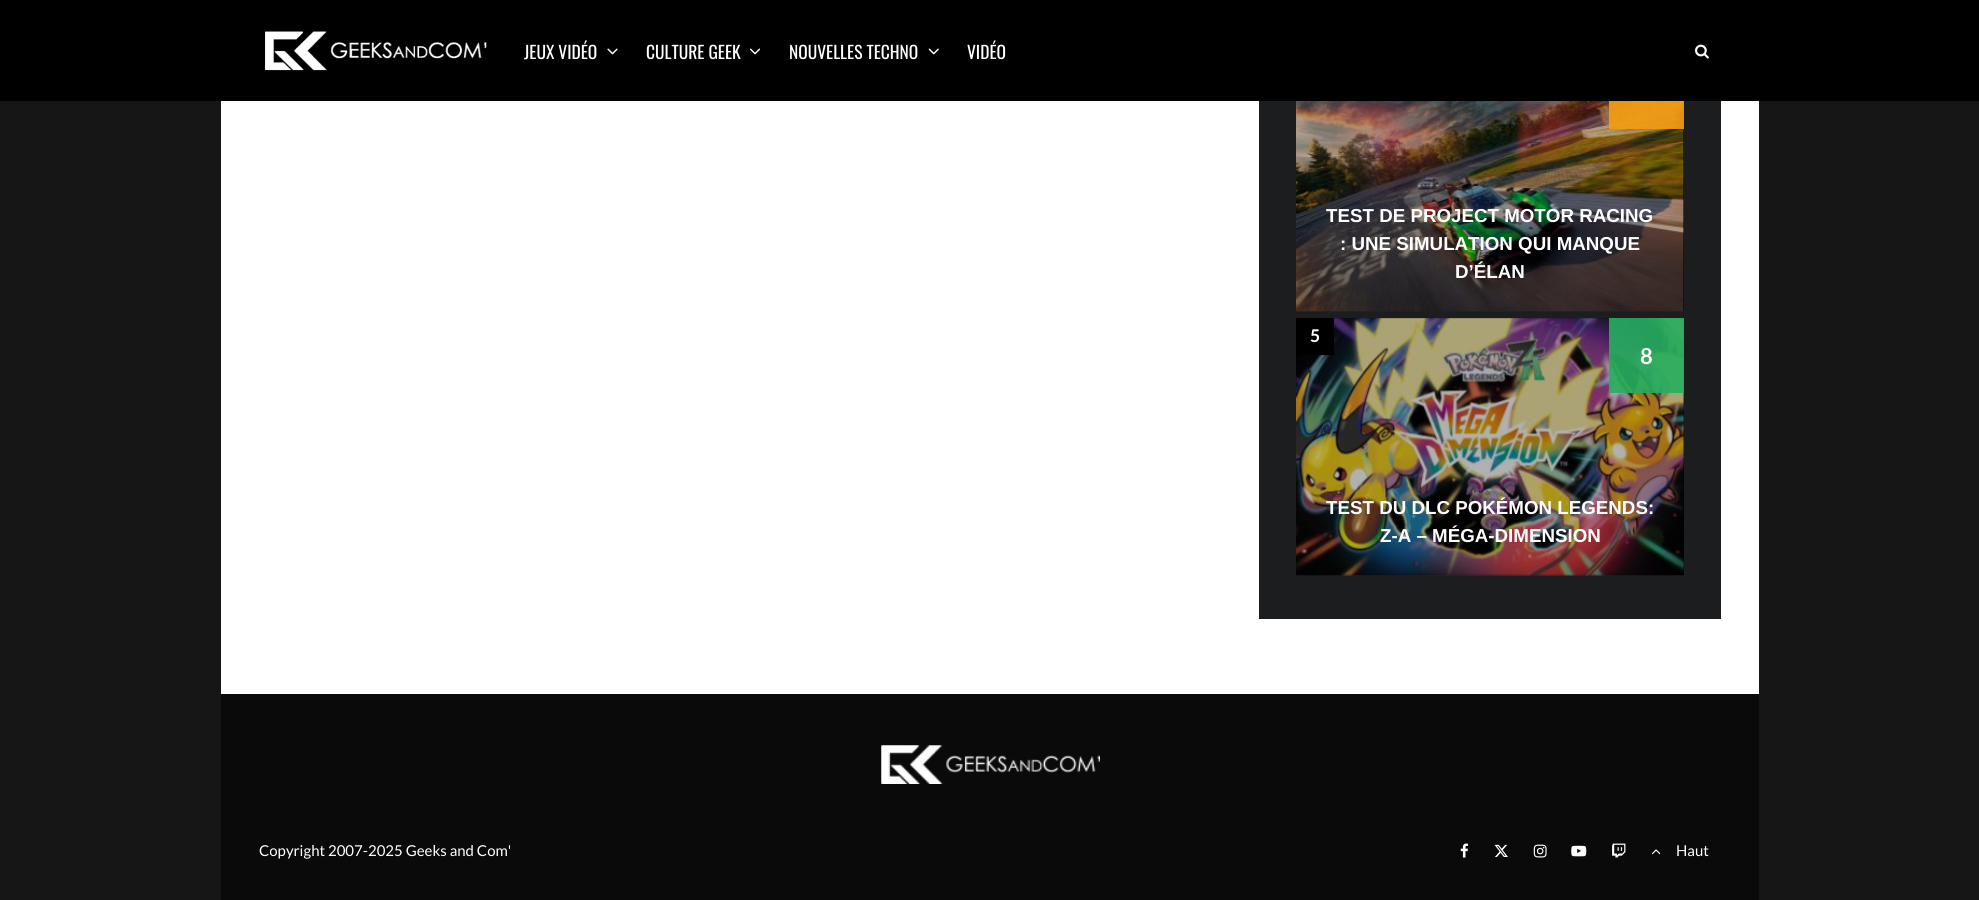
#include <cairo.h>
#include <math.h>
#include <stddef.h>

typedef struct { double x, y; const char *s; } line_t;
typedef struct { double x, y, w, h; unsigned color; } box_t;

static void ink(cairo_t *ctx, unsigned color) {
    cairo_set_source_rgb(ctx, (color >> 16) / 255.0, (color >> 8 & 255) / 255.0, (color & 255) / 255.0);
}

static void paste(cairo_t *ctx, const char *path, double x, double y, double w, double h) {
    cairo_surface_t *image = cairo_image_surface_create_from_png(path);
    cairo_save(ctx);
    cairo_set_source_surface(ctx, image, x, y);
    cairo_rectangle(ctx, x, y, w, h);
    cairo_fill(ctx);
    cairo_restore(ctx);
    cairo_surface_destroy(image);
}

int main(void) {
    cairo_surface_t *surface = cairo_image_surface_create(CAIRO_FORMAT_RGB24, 1979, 900);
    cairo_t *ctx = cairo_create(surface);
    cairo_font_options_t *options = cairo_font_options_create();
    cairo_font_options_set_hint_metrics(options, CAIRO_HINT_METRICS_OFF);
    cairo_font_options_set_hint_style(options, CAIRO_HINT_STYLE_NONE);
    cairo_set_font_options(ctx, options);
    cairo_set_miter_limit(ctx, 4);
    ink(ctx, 0x161616);
    cairo_paint(ctx);
    ink(ctx, 0x000000);
    cairo_rectangle(ctx, 0, 0, 1979, 101);
    cairo_fill(ctx);
    paste(ctx, "media/1.png", 265, 31, 222, 40);
    cairo_select_font_face(ctx, "Oswald", CAIRO_FONT_SLANT_NORMAL, CAIRO_FONT_WEIGHT_NORMAL);
    cairo_set_font_size(ctx, 17.5);
    ink(ctx, 0xFFFFFF);
    cairo_move_to(ctx, 524, 59);
    cairo_show_text(ctx, "JEUX VIDÉO");
    paste(ctx, "media/2.png", 607, 48, 11, 7);
    cairo_move_to(ctx, 646, 59);
    cairo_show_text(ctx, "CULTURE GEEK");
    paste(ctx, "media/3.png", 749, 48, 12, 7);
    cairo_move_to(ctx, 789, 59);
    cairo_show_text(ctx, "NOUVELLES TECHNO");
    paste(ctx, "media/4.png", 928, 48, 11, 7);
    cairo_move_to(ctx, 967, 59);
    cairo_show_text(ctx, "VIDÉO");
    paste(ctx, "media/5.png", 1695, 44, 14, 15);
    {
        static const box_t items[] = {
            {221, 101, 1538, 593, 0xFFFFFF},
            {1259, 101, 462, 518, 0x1C1D1E},
            {1296, 101, 388, 210, 0x000000},
        };
        for (size_t i = 0; i < sizeof items / sizeof *items; i++) {
            ink(ctx, items[i].color);
            cairo_rectangle(ctx, items[i].x, items[i].y, items[i].w, items[i].h);
            cairo_fill(ctx);
        }
    }
    paste(ctx, "media/6.png", 1296, 101, 388, 211);
    cairo_set_source_rgba(ctx, 0.953, 0.612, 0.071, 0.9);
    cairo_rectangle(ctx, 1609, 101, 75, 28);
    cairo_fill(ctx);
    cairo_select_font_face(ctx, "Liberation Sans", CAIRO_FONT_SLANT_NORMAL, CAIRO_FONT_WEIGHT_BOLD);
    cairo_set_font_size(ctx, 18.75);
    ink(ctx, 0xFFFFFF);
    {
        static const line_t items[] = {
            {1326, 222, "TEST DE PROJECT MOTOR RACING"},
            {1340, 250, ": UNE SIMULATION QUI MANQUE"},
            {1455, 278, "D’ÉLAN"},
        };
        for (size_t i = 0; i < sizeof items / sizeof *items; i++) {
            cairo_move_to(ctx, items[i].x, items[i].y);
            cairo_show_text(ctx, items[i].s);
        }
    }
    ink(ctx, 0x000000);
    cairo_rectangle(ctx, 1296, 318, 388, 257);
    cairo_fill(ctx);
    paste(ctx, "media/7.png", 1296, 318, 388, 258);
    cairo_rectangle(ctx, 1296, 318, 38, 37);
    cairo_fill(ctx);
    cairo_select_font_face(ctx, "Lato", CAIRO_FONT_SLANT_NORMAL, CAIRO_FONT_WEIGHT_BOLD);
    cairo_set_font_size(ctx, 17.5);
    ink(ctx, 0xFFFFFF);
    cairo_move_to(ctx, 1310, 342);
    cairo_show_text(ctx, "5");
    cairo_set_source_rgba(ctx, 0.153, 0.682, 0.376, 0.9);
    cairo_rectangle(ctx, 1609, 318, 75, 75);
    cairo_fill(ctx);
    cairo_set_font_size(ctx, 22);
    ink(ctx, 0xFFFFFF);
    cairo_move_to(ctx, 1640, 364);
    cairo_show_text(ctx, "8");
    cairo_select_font_face(ctx, "Liberation Sans", CAIRO_FONT_SLANT_NORMAL, CAIRO_FONT_WEIGHT_BOLD);
    cairo_set_font_size(ctx, 18.75);
    cairo_move_to(ctx, 1326, 514);
    cairo_show_text(ctx, "TEST DU DLC POKÉMON LEGENDS:");
    cairo_move_to(ctx, 1380, 542);
    cairo_show_text(ctx, "Z-A – MÉGA-DIMENSION");
    ink(ctx, 0x0A0A0A);
    cairo_rectangle(ctx, 221, 694, 1538, 206);
    cairo_fill(ctx);
    paste(ctx, "media/8.png", 881, 745, 219, 39);
    cairo_select_font_face(ctx, "Lato", CAIRO_FONT_SLANT_NORMAL, CAIRO_FONT_WEIGHT_NORMAL);
    cairo_set_font_size(ctx, 15);
    ink(ctx, 0xFFFFFF);
    cairo_move_to(ctx, 259, 856);
    cairo_show_text(ctx, "Copyright 2007-2025 Geeks and Com'");
    paste(ctx, "media/9.png", 1460, 843, 9, 15);
    paste(ctx, "media/10.png", 1494, 844, 14, 13);
    paste(ctx, "media/11.png", 1533, 844, 14, 14);
    paste(ctx, "media/12.png", 1571, 845, 16, 12);
    paste(ctx, "media/13.png", 1612, 843, 14, 15);
    paste(ctx, "media/14.png", 1651, 849, 10, 6);
    cairo_move_to(ctx, 1676, 856);
    cairo_show_text(ctx, "Haut");
    cairo_surface_write_to_png(surface, "image.png");
    cairo_font_options_destroy(options);
    cairo_destroy(ctx);
    cairo_surface_destroy(surface);
    return 0;
}
